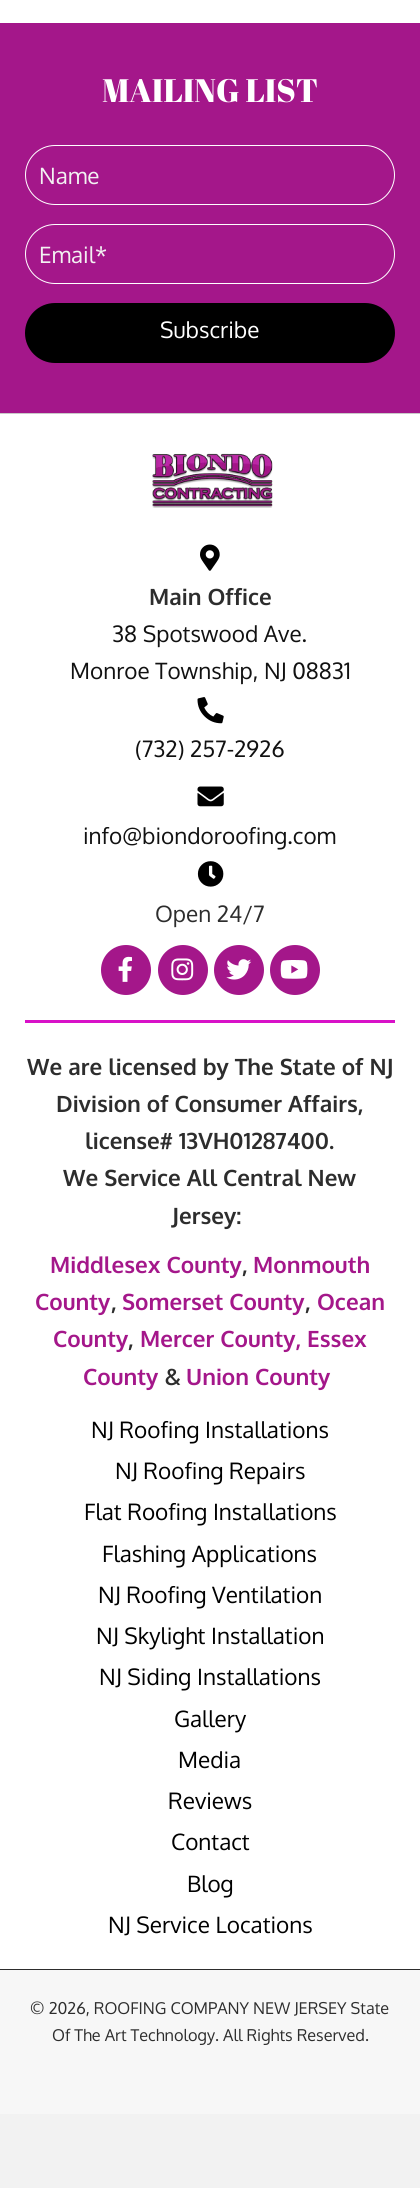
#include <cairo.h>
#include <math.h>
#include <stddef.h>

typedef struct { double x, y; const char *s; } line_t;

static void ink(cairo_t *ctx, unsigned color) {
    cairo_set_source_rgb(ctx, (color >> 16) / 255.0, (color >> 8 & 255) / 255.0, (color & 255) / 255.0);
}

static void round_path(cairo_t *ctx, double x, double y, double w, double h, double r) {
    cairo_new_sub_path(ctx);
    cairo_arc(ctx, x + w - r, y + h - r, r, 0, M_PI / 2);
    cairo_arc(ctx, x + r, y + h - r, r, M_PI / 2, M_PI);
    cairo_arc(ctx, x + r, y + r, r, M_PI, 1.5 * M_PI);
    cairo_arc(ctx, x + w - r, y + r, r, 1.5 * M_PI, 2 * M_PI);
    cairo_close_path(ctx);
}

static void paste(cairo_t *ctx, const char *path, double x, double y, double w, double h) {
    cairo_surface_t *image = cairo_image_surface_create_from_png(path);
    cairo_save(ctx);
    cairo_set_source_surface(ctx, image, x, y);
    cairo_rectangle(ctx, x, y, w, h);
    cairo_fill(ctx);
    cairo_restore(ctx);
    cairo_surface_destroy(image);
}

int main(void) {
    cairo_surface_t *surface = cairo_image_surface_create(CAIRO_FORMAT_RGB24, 420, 2188);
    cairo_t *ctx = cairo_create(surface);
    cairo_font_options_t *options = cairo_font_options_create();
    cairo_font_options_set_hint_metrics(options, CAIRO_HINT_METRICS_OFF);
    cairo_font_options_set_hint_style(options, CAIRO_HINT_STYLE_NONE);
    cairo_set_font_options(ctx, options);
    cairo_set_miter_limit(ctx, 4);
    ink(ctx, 0xF2F2F2);
    cairo_paint(ctx);
    ink(ctx, 0xFFFFFF);
    cairo_rectangle(ctx, 0, 0, 420, 23);
    cairo_fill(ctx);
    ink(ctx, 0xA4178A);
    cairo_rectangle(ctx, 0, 23, 420, 390);
    cairo_fill(ctx);
    cairo_select_font_face(ctx, "Abril Fatface", CAIRO_FONT_SLANT_NORMAL, CAIRO_FONT_WEIGHT_NORMAL);
    cairo_set_font_size(ctx, 32.5);
    ink(ctx, 0xFFFFFF);
    cairo_move_to(ctx, 102, 102);
    cairo_show_text(ctx, "MAILING LIST");
    round_path(ctx, 25.5, 145.5, 369, 59, 29.5);
    cairo_set_line_width(ctx, 1);
    cairo_stroke(ctx);
    cairo_select_font_face(ctx, "Oxygen", CAIRO_FONT_SLANT_NORMAL, CAIRO_FONT_WEIGHT_NORMAL);
    cairo_set_font_size(ctx, 22.5);
    ink(ctx, 0xF2F2F2);
    cairo_move_to(ctx, 39, 184);
    cairo_show_text(ctx, "Name");
    round_path(ctx, 25.5, 224.5, 369, 59, 29.5);
    ink(ctx, 0xFFFFFF);
    cairo_stroke(ctx);
    ink(ctx, 0xF2F2F2);
    cairo_move_to(ctx, 39, 263);
    cairo_show_text(ctx, "Email*");
    ink(ctx, 0x000000);
    round_path(ctx, 25, 303, 370, 60, 30);
    cairo_fill(ctx);
    ink(ctx, 0xFFFFFF);
    cairo_move_to(ctx, 160, 338);
    cairo_show_text(ctx, "Subscribe");
    cairo_rectangle(ctx, 0, 414, 420, 1555);
    cairo_fill(ctx);
    ink(ctx, 0xC9C9C9);
    cairo_rectangle(ctx, 0, 413, 420, 1);
    cairo_fill(ctx);
    paste(ctx, "media/1.png", 152, 453, 121, 55);
    paste(ctx, "media/2.png", 200, 544, 20, 27);
    cairo_select_font_face(ctx, "Oxygen", CAIRO_FONT_SLANT_NORMAL, CAIRO_FONT_WEIGHT_BOLD);
    ink(ctx, 0x2D2D2D);
    cairo_move_to(ctx, 149, 605);
    cairo_show_text(ctx, "Main Office");
    cairo_select_font_face(ctx, "Oxygen", CAIRO_FONT_SLANT_NORMAL, CAIRO_FONT_WEIGHT_NORMAL);
    ink(ctx, 0x111111);
    cairo_move_to(ctx, 112, 642);
    cairo_show_text(ctx, "38 Spotswood Ave.");
    cairo_move_to(ctx, 70, 679);
    cairo_show_text(ctx, "Monroe Township, NJ 08831");
    paste(ctx, "media/3.png", 197, 697, 27, 27);
    cairo_move_to(ctx, 135, 757);
    cairo_show_text(ctx, "(732) 257-2926");
    paste(ctx, "media/4.png", 197, 786, 27, 21);
    cairo_move_to(ctx, 83, 844);
    cairo_show_text(ctx, "info@biondoroofing.com");
    paste(ctx, "media/5.png", 197, 861, 27, 26);
    ink(ctx, 0x2D2D2D);
    cairo_move_to(ctx, 155, 922);
    cairo_show_text(ctx, "Open 24/7");
    ink(ctx, 0xA4178A);
    cairo_new_path(ctx);
    cairo_arc(ctx, 126, 970, 25, 0, 2 * M_PI);
    cairo_fill(ctx);
    paste(ctx, "media/6.png", 118, 956, 14, 26);
    cairo_arc(ctx, 183, 970, 25, 0, 2 * M_PI);
    cairo_fill(ctx);
    paste(ctx, "media/7.png", 171, 958, 23, 23);
    cairo_arc(ctx, 239, 970, 25, 0, 2 * M_PI);
    cairo_fill(ctx);
    paste(ctx, "media/8.png", 226, 959, 26, 21);
    cairo_arc(ctx, 295, 970, 25, 0, 2 * M_PI);
    cairo_fill(ctx);
    paste(ctx, "media/9.png", 280, 960, 28, 19);
    ink(ctx, 0xD811C8);
    cairo_rectangle(ctx, 25, 1020, 370, 3);
    cairo_fill(ctx);
    cairo_select_font_face(ctx, "Oxygen", CAIRO_FONT_SLANT_NORMAL, CAIRO_FONT_WEIGHT_BOLD);
    ink(ctx, 0x2D2D2D);
    {
        static const line_t items[] = {
            {27, 1075, "We are licensed by The State of NJ"},
            {56, 1112, "Division of Consumer Affairs,"},
            {85, 1149, "license# 13VH01287400."},
            {63, 1186, "We Service All Central New"},
            {172, 1224, "Jersey:"},
        };
        for (size_t i = 0; i < sizeof items / sizeof *items; i++) {
            cairo_move_to(ctx, items[i].x, items[i].y);
            cairo_show_text(ctx, items[i].s);
        }
    }
    ink(ctx, 0xA4178A);
    cairo_move_to(ctx, 50, 1273);
    cairo_show_text(ctx, "Middlesex County");
    ink(ctx, 0x2D2D2D);
    cairo_move_to(ctx, 242, 1273);
    cairo_show_text(ctx, ",");
    ink(ctx, 0xA4178A);
    cairo_move_to(ctx, 253, 1273);
    cairo_show_text(ctx, "Monmouth");
    cairo_move_to(ctx, 35, 1310);
    cairo_show_text(ctx, "County");
    ink(ctx, 0x2D2D2D);
    cairo_move_to(ctx, 111, 1310);
    cairo_show_text(ctx, ",");
    ink(ctx, 0xA4178A);
    cairo_move_to(ctx, 122, 1310);
    cairo_show_text(ctx, "Somerset County");
    ink(ctx, 0x2D2D2D);
    cairo_move_to(ctx, 305, 1310);
    cairo_show_text(ctx, ",");
    ink(ctx, 0xA4178A);
    cairo_move_to(ctx, 317, 1310);
    cairo_show_text(ctx, "Ocean");
    cairo_move_to(ctx, 53, 1347);
    cairo_show_text(ctx, "County");
    ink(ctx, 0x2D2D2D);
    cairo_move_to(ctx, 128, 1347);
    cairo_show_text(ctx, ",");
    ink(ctx, 0xA4178A);
    cairo_move_to(ctx, 140, 1347);
    cairo_show_text(ctx, "Mercer County, Essex");
    cairo_move_to(ctx, 83, 1385);
    cairo_show_text(ctx, "County");
    ink(ctx, 0x2D2D2D);
    cairo_move_to(ctx, 165, 1385);
    cairo_show_text(ctx, "&");
    ink(ctx, 0xA4178A);
    cairo_move_to(ctx, 186, 1385);
    cairo_show_text(ctx, "Union County");
    cairo_select_font_face(ctx, "Oxygen", CAIRO_FONT_SLANT_NORMAL, CAIRO_FONT_WEIGHT_NORMAL);
    ink(ctx, 0x000000);
    {
        static const line_t items[] = {
            {91, 1438, "NJ Roofing Installations"},
            {115, 1479, "NJ Roofing Repairs"},
            {84, 1520, "Flat Roofing Installations"},
            {102, 1562, "Flashing Applications"},
            {98, 1603, "NJ Roofing Ventilation"},
            {96, 1644, "NJ Skylight Installation"},
            {99, 1685, "NJ Siding Installations"},
            {174, 1727, "Gallery"},
            {178, 1768, "Media"},
            {168, 1809, "Reviews"},
            {171, 1850, "Contact"},
            {187, 1892, "Blog"},
            {108, 1933, "NJ Service Locations"},
        };
        for (size_t i = 0; i < sizeof items / sizeof *items; i++) {
            cairo_move_to(ctx, items[i].x, items[i].y);
            cairo_show_text(ctx, items[i].s);
        }
    }
    ink(ctx, 0xF7F7F7);
    cairo_rectangle(ctx, 0, 1970, 420, 144);
    cairo_fill(ctx);
    ink(ctx, 0x2D2D2D);
    cairo_rectangle(ctx, 0, 1969, 420, 1);
    cairo_fill(ctx);
    cairo_set_font_size(ctx, 16.25);
    cairo_move_to(ctx, 30, 2014);
    cairo_show_text(ctx, "© 2026, ROOFING COMPANY NEW JERSEY State");
    cairo_move_to(ctx, 52, 2041);
    cairo_show_text(ctx, "Of The Art Technology. All Rights Reserved.");
    cairo_surface_write_to_png(surface, "image.png");
    cairo_font_options_destroy(options);
    cairo_destroy(ctx);
    cairo_surface_destroy(surface);
    return 0;
}
